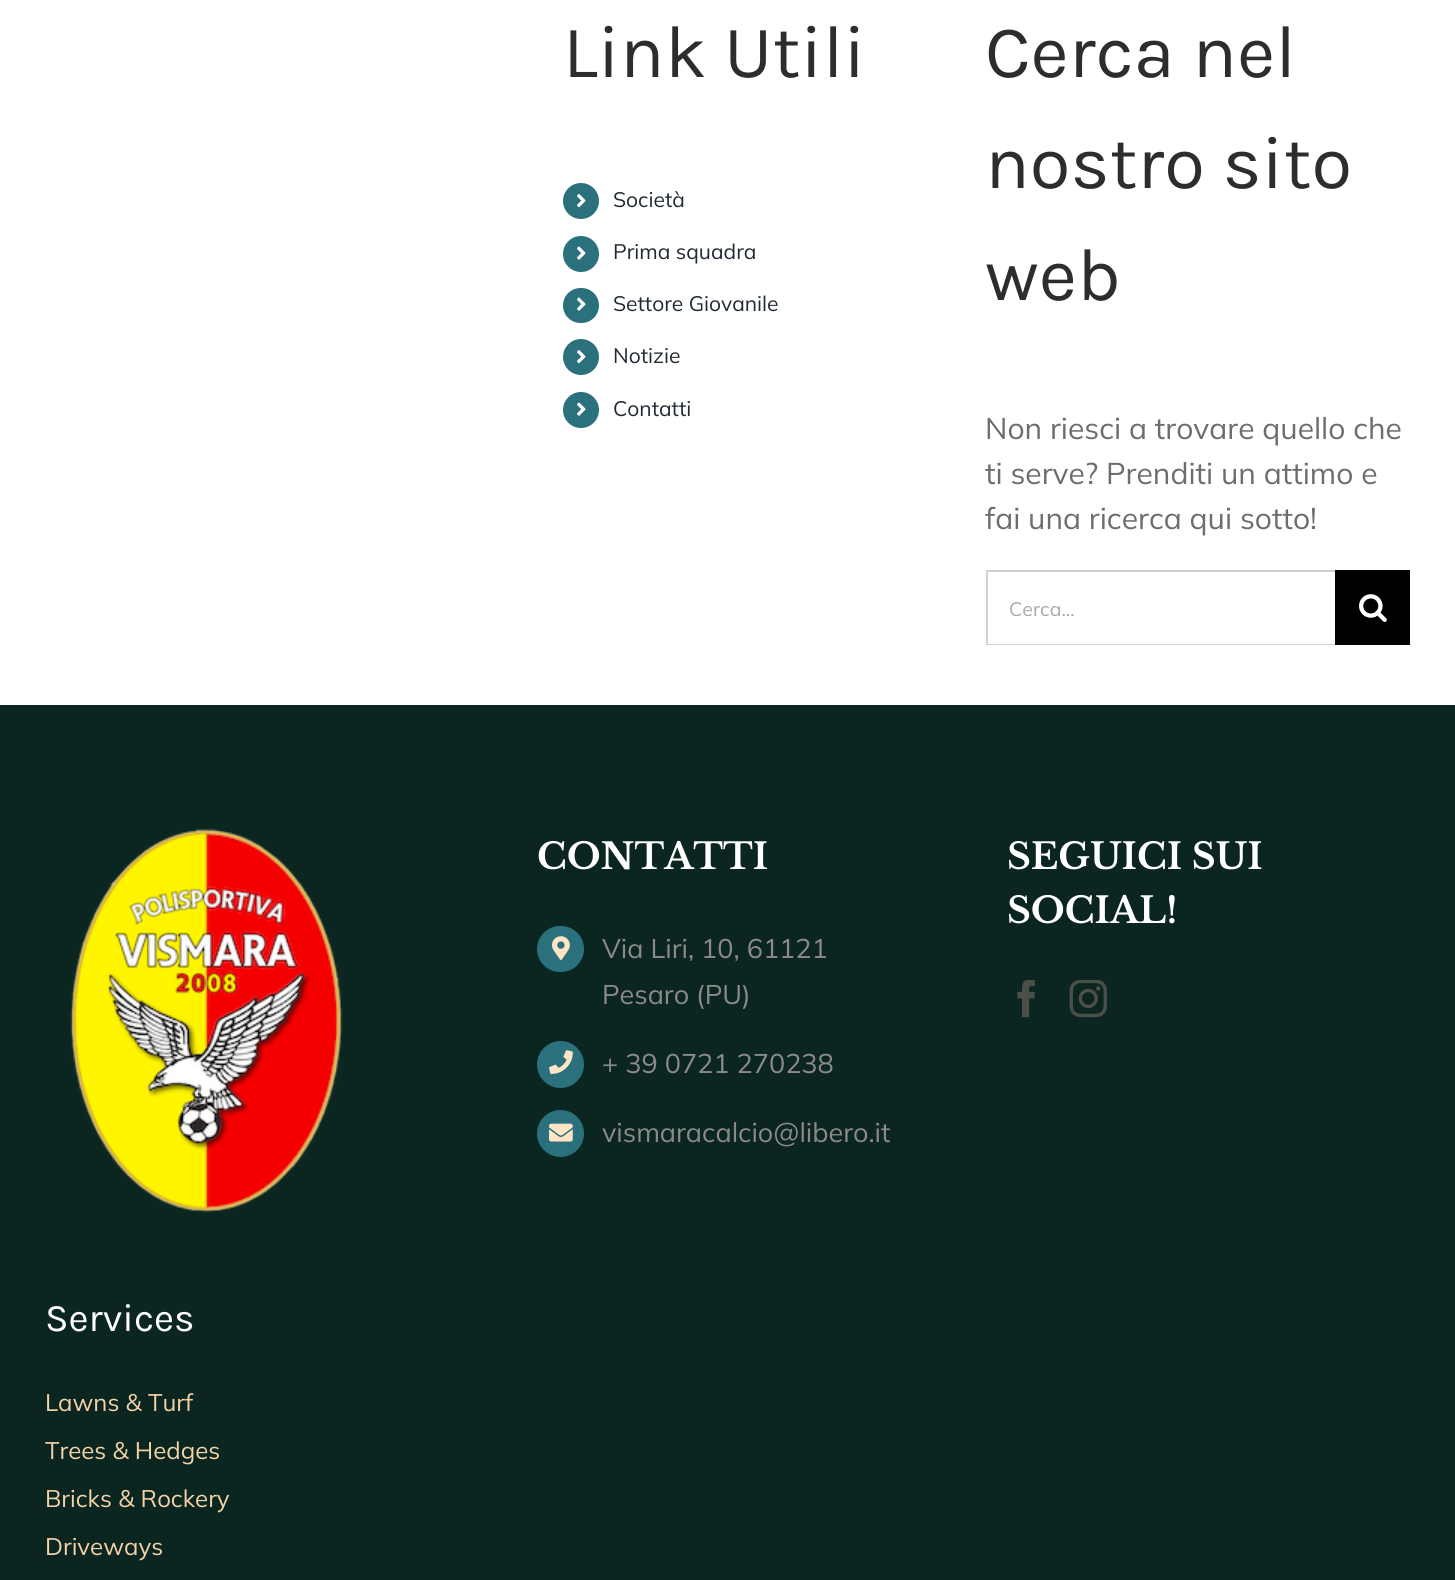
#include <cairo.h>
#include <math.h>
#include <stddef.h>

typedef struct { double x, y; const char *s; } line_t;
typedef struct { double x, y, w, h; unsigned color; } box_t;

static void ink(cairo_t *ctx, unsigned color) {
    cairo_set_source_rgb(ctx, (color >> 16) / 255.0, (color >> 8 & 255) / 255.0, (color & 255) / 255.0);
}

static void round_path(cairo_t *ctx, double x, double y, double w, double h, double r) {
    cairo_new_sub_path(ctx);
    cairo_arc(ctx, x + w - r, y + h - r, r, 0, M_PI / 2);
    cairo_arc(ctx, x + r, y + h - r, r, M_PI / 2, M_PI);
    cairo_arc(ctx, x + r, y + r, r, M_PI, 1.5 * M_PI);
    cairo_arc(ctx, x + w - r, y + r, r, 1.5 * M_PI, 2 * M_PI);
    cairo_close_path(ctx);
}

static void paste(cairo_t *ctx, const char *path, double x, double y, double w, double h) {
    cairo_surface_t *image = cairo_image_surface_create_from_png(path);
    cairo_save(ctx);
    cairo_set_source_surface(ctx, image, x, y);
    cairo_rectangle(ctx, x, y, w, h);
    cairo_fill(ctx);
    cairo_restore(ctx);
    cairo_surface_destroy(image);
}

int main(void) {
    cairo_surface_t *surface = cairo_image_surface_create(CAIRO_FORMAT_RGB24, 1455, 1580);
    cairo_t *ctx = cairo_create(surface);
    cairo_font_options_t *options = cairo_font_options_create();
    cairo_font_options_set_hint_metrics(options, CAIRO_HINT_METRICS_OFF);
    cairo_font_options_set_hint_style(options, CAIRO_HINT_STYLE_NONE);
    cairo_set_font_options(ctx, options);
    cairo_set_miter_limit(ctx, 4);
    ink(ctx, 0xFFFFFF);
    cairo_paint(ctx);
    cairo_select_font_face(ctx, "Karla", CAIRO_FONT_SLANT_NORMAL, CAIRO_FONT_WEIGHT_NORMAL);
    cairo_set_font_size(ctx, 74.25);
    ink(ctx, 0x2D2D2D);
    cairo_move_to(ctx, 563, 77);
    cairo_show_text(ctx, "Link Utili");
    ink(ctx, 0x2B707D);
    cairo_new_path(ctx);
    cairo_arc(ctx, 581, 201, 18, 0, 2 * M_PI);
    cairo_fill(ctx);
    paste(ctx, "media/1.png", 577, 194, 9, 14);
    cairo_select_font_face(ctx, "Mulish", CAIRO_FONT_SLANT_NORMAL, CAIRO_FONT_WEIGHT_NORMAL);
    cairo_set_font_size(ctx, 21);
    ink(ctx, 0x212934);
    cairo_move_to(ctx, 613, 207);
    cairo_show_text(ctx, "Società");
    ink(ctx, 0x2B707D);
    cairo_new_path(ctx);
    cairo_arc(ctx, 581, 254, 18, 0, 2 * M_PI);
    cairo_fill(ctx);
    paste(ctx, "media/2.png", 577, 246, 9, 14);
    ink(ctx, 0x212934);
    cairo_move_to(ctx, 613, 259);
    cairo_show_text(ctx, "Prima squadra");
    ink(ctx, 0x2B707D);
    round_path(ctx, 563, 288, 36, 35, 17.5);
    cairo_fill(ctx);
    paste(ctx, "media/2.png", 577, 297, 9, 14);
    ink(ctx, 0x212934);
    cairo_move_to(ctx, 613, 311);
    cairo_show_text(ctx, "Settore Giovanile");
    ink(ctx, 0x2B707D);
    cairo_new_path(ctx);
    cairo_arc(ctx, 581, 357, 18, 0, 2 * M_PI);
    cairo_fill(ctx);
    paste(ctx, "media/1.png", 577, 350, 9, 14);
    ink(ctx, 0x212934);
    cairo_move_to(ctx, 613, 363);
    cairo_show_text(ctx, "Notizie");
    ink(ctx, 0x2B707D);
    cairo_new_path(ctx);
    cairo_arc(ctx, 581, 410, 18, 0, 2 * M_PI);
    cairo_fill(ctx);
    paste(ctx, "media/2.png", 577, 402, 9, 14);
    ink(ctx, 0x212934);
    cairo_move_to(ctx, 613, 416);
    cairo_show_text(ctx, "Contatti");
    cairo_select_font_face(ctx, "Karla", CAIRO_FONT_SLANT_NORMAL, CAIRO_FONT_WEIGHT_NORMAL);
    cairo_set_font_size(ctx, 74.25);
    ink(ctx, 0x2D2D2D);
    {
        static const line_t items[] = {
            {985, 77, "Cerca nel"},
            {985, 188, "nostro sito"},
            {985, 300, "web"},
        };
        for (size_t i = 0; i < sizeof items / sizeof *items; i++) {
            cairo_move_to(ctx, items[i].x, items[i].y);
            cairo_show_text(ctx, items[i].s);
        }
    }
    cairo_select_font_face(ctx, "Mulish", CAIRO_FONT_SLANT_NORMAL, CAIRO_FONT_WEIGHT_NORMAL);
    cairo_set_font_size(ctx, 30);
    ink(ctx, 0x6D6D6D);
    {
        static const line_t items[] = {
            {985, 439, "Non riesci a trovare quello che"},
            {985, 484, "ti serve? Prenditi un attimo e"},
            {985, 529, "fai una ricerca qui sotto!"},
        };
        for (size_t i = 0; i < sizeof items / sizeof *items; i++) {
            cairo_move_to(ctx, items[i].x, items[i].y);
            cairo_show_text(ctx, items[i].s);
        }
    }
    {
        static const box_t items[] = {
            {986, 570, 349, 2, 0xD2D2D2},
            {986, 644, 349, 1, 0xD2D2D2},
            {986, 570, 2, 75, 0xD2D2D2},
        };
        for (size_t i = 0; i < sizeof items / sizeof *items; i++) {
            ink(ctx, items[i].color);
            cairo_rectangle(ctx, items[i].x, items[i].y, items[i].w, items[i].h);
            cairo_fill(ctx);
        }
    }
    cairo_set_font_size(ctx, 19.5);
    ink(ctx, 0xAAA9A9);
    cairo_move_to(ctx, 1009, 616);
    cairo_show_text(ctx, "Cerca...");
    ink(ctx, 0x000000);
    cairo_rectangle(ctx, 1335, 570, 75, 75);
    cairo_fill(ctx);
    paste(ctx, "media/3.png", 1359, 594, 28, 28);
    ink(ctx, 0x0B2621);
    cairo_rectangle(ctx, 0, 705, 1455, 875);
    cairo_fill(ctx);
    cairo_select_font_face(ctx, "Libre Baskerville", CAIRO_FONT_SLANT_NORMAL, CAIRO_FONT_WEIGHT_BOLD);
    cairo_set_font_size(ctx, 36);
    ink(ctx, 0xFFFFFF);
    cairo_move_to(ctx, 537, 869);
    cairo_show_text(ctx, "CONTATTI");
    ink(ctx, 0x2B707D);
    round_path(ctx, 537, 926, 47, 46, 23);
    cairo_fill(ctx);
    paste(ctx, "media/4.png", 552, 936, 18, 24);
    cairo_select_font_face(ctx, "Mulish", CAIRO_FONT_SLANT_NORMAL, CAIRO_FONT_WEIGHT_NORMAL);
    cairo_set_font_size(ctx, 27);
    ink(ctx, 0x8C8989);
    cairo_move_to(ctx, 602, 958);
    cairo_show_text(ctx, "Via Liri, 10, 61121");
    cairo_move_to(ctx, 602, 1004);
    cairo_show_text(ctx, "Pesaro (PU)");
    ink(ctx, 0x2B707D);
    cairo_new_path(ctx);
    cairo_arc(ctx, 560.5, 1064.5, 23.5, 0, 2 * M_PI);
    cairo_fill(ctx);
    paste(ctx, "media/5.png", 549, 1050, 24, 24);
    ink(ctx, 0x8C8989);
    cairo_move_to(ctx, 602, 1073);
    cairo_show_text(ctx, "+ 39 0721 270238");
    ink(ctx, 0x2B707D);
    cairo_new_path(ctx);
    cairo_arc(ctx, 560.5, 1133.5, 23.5, 0, 2 * M_PI);
    cairo_fill(ctx);
    paste(ctx, "media/6.png", 549, 1123, 24, 19);
    ink(ctx, 0x8C8989);
    cairo_move_to(ctx, 602, 1142);
    cairo_show_text(ctx, "vismaracalcio@libero.it");
    cairo_select_font_face(ctx, "Libre Baskerville", CAIRO_FONT_SLANT_NORMAL, CAIRO_FONT_WEIGHT_BOLD);
    cairo_set_font_size(ctx, 36);
    ink(ctx, 0xFFFFFF);
    cairo_move_to(ctx, 1007, 869);
    cairo_show_text(ctx, "SEGUICI SUI");
    cairo_move_to(ctx, 1007, 923);
    cairo_show_text(ctx, "SOCIAL!");
    paste(ctx, "media/7.png", 1017, 980, 18, 38);
    paste(ctx, "media/8.png", 1069, 980, 38, 38);
    paste(ctx, "media/9.png", 70, 829, 273, 384);
    cairo_select_font_face(ctx, "Karla", CAIRO_FONT_SLANT_NORMAL, CAIRO_FONT_WEIGHT_NORMAL);
    cairo_set_font_size(ctx, 39);
    cairo_move_to(ctx, 45, 1331);
    cairo_show_text(ctx, "Services");
    cairo_select_font_face(ctx, "Mulish", CAIRO_FONT_SLANT_NORMAL, CAIRO_FONT_WEIGHT_NORMAL);
    cairo_set_font_size(ctx, 24);
    ink(ctx, 0xF3D2A7);
    {
        static const line_t items[] = {
            {45, 1411, "Lawns & Turf"},
            {45, 1459, "Trees & Hedges"},
            {45, 1507, "Bricks & Rockery"},
            {45, 1555, "Driveways"},
        };
        for (size_t i = 0; i < sizeof items / sizeof *items; i++) {
            cairo_move_to(ctx, items[i].x, items[i].y);
            cairo_show_text(ctx, items[i].s);
        }
    }
    cairo_surface_write_to_png(surface, "image.png");
    cairo_font_options_destroy(options);
    cairo_destroy(ctx);
    cairo_surface_destroy(surface);
    return 0;
}
